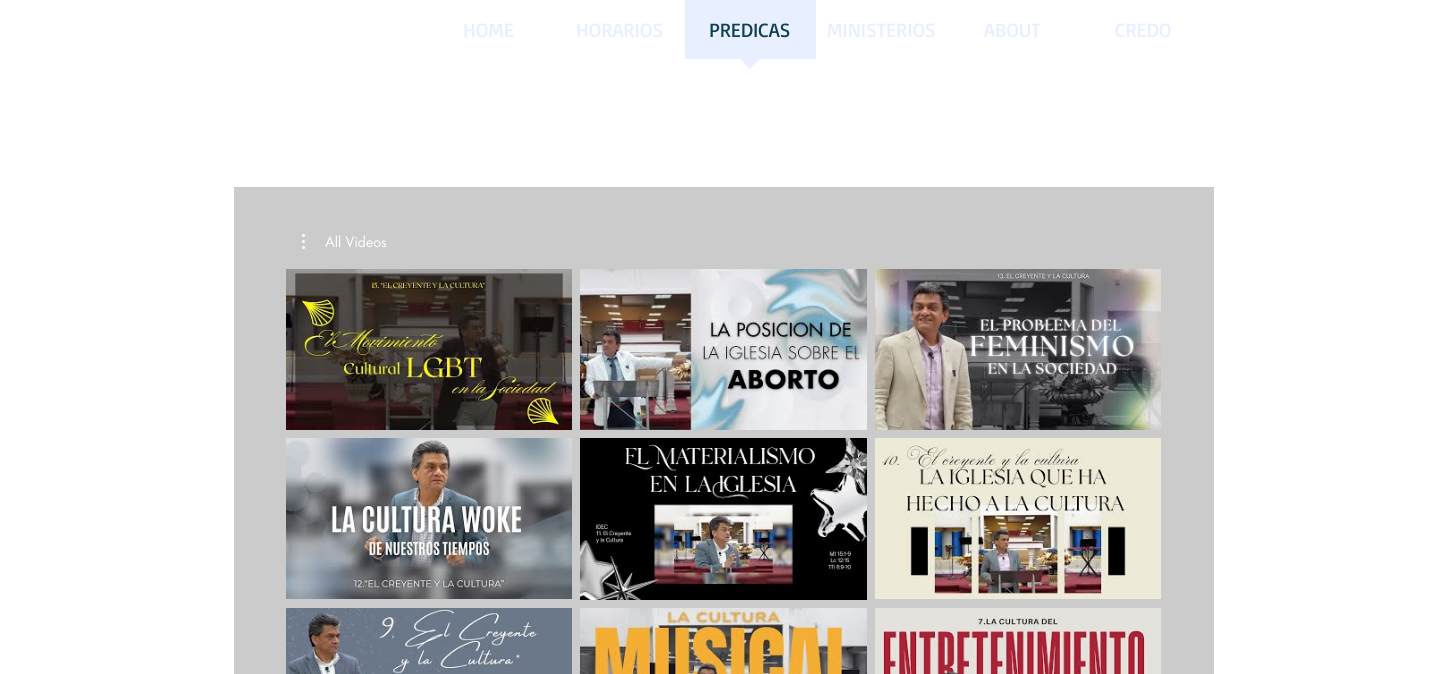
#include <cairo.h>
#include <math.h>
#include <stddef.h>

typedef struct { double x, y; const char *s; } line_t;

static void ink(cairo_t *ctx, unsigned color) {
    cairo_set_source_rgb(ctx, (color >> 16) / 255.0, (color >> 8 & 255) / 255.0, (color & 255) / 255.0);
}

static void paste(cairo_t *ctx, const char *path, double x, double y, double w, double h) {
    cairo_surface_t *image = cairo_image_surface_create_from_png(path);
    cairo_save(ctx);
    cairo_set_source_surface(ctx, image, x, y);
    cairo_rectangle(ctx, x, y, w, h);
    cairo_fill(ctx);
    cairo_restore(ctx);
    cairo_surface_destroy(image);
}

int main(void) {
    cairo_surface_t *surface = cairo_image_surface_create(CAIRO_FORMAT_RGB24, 1447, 674);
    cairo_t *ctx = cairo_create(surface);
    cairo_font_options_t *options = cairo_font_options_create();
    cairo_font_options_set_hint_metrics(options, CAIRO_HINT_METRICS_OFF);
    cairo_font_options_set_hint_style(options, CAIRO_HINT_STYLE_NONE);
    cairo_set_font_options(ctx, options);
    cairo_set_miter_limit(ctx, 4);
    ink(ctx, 0xFFFFFF);
    cairo_paint(ctx);
    cairo_select_font_face(ctx, "Basic", CAIRO_FONT_SLANT_NORMAL, CAIRO_FONT_WEIGHT_NORMAL);
    cairo_set_font_size(ctx, 20);
    ink(ctx, 0xE6EEFF);
    cairo_move_to(ctx, 463, 37);
    cairo_show_text(ctx, "HOME");
    cairo_move_to(ctx, 576, 37);
    cairo_show_text(ctx, "HORARIOS");
    ink(ctx, 0xE8F0FF);
    cairo_rectangle(ctx, 685, 0, 131, 59);
    cairo_fill(ctx);
    ink(ctx, 0x103F54);
    cairo_move_to(ctx, 709, 37);
    cairo_show_text(ctx, "PREDICAS");
    ink(ctx, 0xE8F0FF);
    cairo_new_path(ctx);
    cairo_move_to(ctx, 740, 59);
    cairo_line_to(ctx, 760, 59);
    cairo_line_to(ctx, 750, 69);
    cairo_close_path(ctx);
    cairo_fill(ctx);
    ink(ctx, 0xE6EEFF);
    {
        static const line_t items[] = {
            {827, 37, "MINISTERIOS"},
            {984, 37, "ABOUT"},
            {1115, 37, "CREDO"},
        };
        for (size_t i = 0; i < sizeof items / sizeof *items; i++) {
            cairo_move_to(ctx, items[i].x, items[i].y);
            cairo_show_text(ctx, items[i].s);
        }
    }
    ink(ctx, 0xCCCBCB);
    cairo_rectangle(ctx, 234, 187, 980, 487);
    cairo_fill(ctx);
    paste(ctx, "media/1.png", 302, 234, 3, 15);
    cairo_select_font_face(ctx, "futura", CAIRO_FONT_SLANT_NORMAL, CAIRO_FONT_WEIGHT_NORMAL);
    cairo_set_font_size(ctx, 14);
    ink(ctx, 0xFFFFFF);
    cairo_move_to(ctx, 325, 247);
    cairo_show_text(ctx, "All Videos");
    paste(ctx, "media/2.png", 286, 269, 286, 161);
    paste(ctx, "media/3.png", 860, 269, 7, 161);
    paste(ctx, "media/4.png", 580, 269, 280, 161);
    paste(ctx, "media/5.png", 875, 269, 286, 161);
    paste(ctx, "media/6.png", 286, 438, 286, 161);
    paste(ctx, "media/7.png", 580, 438, 287, 162);
    paste(ctx, "media/8.png", 875, 438, 286, 161);
    paste(ctx, "media/9.png", 286, 608, 286, 66);
    paste(ctx, "media/10.png", 580, 608, 287, 3);
    paste(ctx, "media/11.png", 580, 611, 287, 63);
    paste(ctx, "media/12.png", 875, 608, 286, 66);
    cairo_surface_write_to_png(surface, "image.png");
    cairo_font_options_destroy(options);
    cairo_destroy(ctx);
    cairo_surface_destroy(surface);
    return 0;
}
